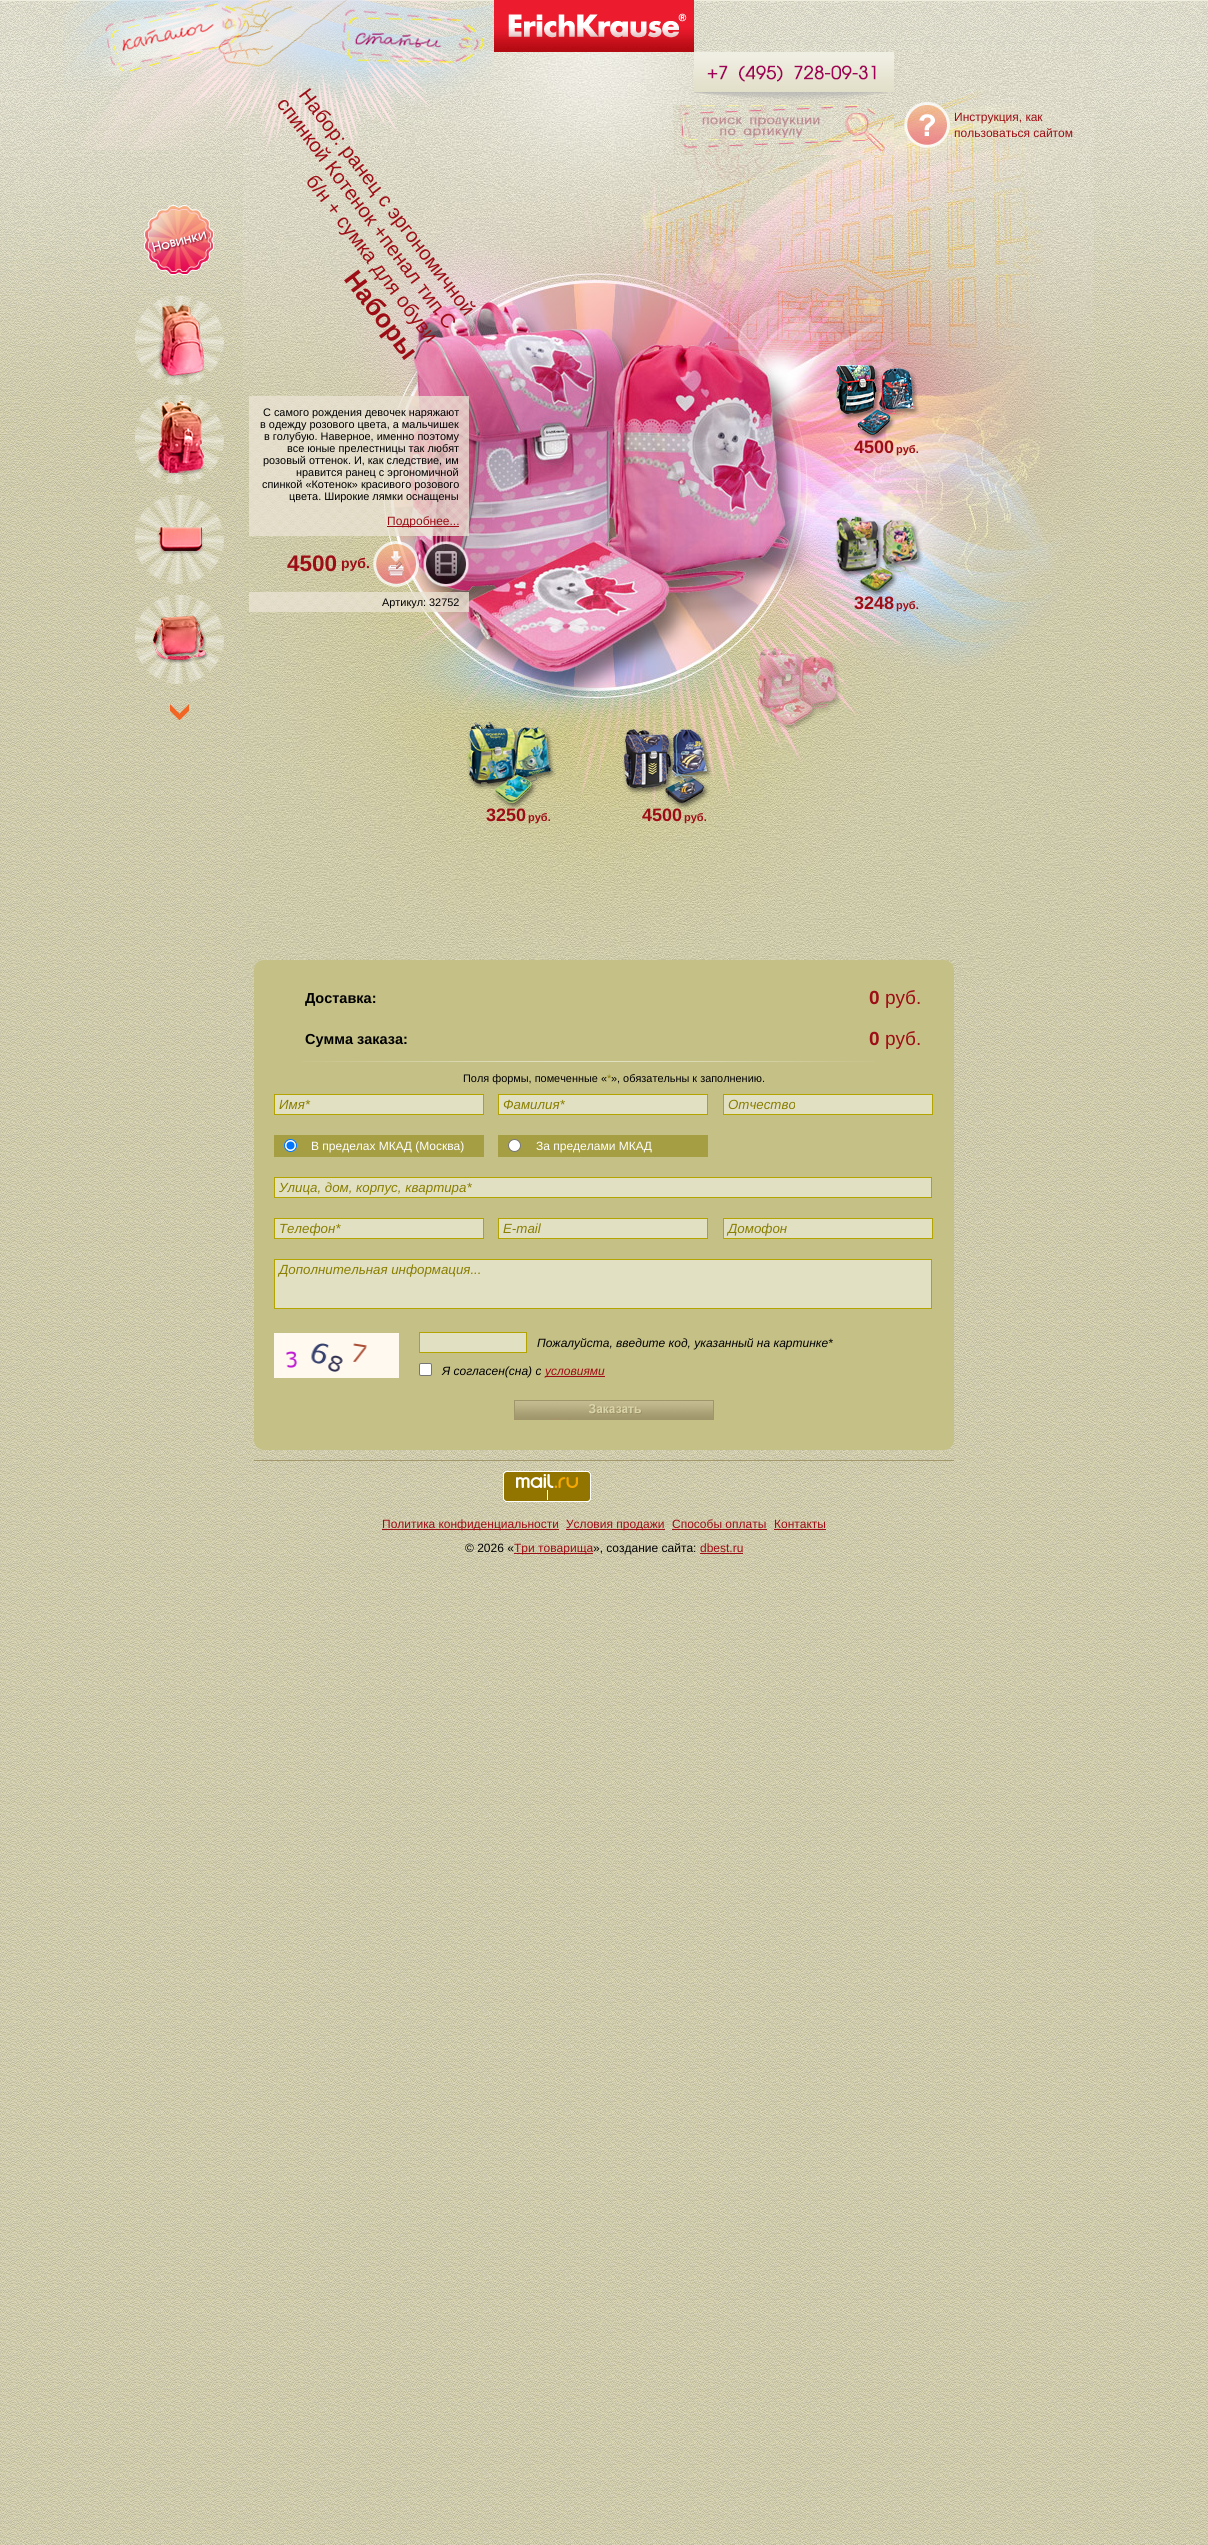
#include <cairo.h>
#include <math.h>
#include <stddef.h>

typedef struct { double x, y; const char *s; } line_t;

static void ink(cairo_t *ctx, unsigned color) {
    cairo_set_source_rgb(ctx, (color >> 16) / 255.0, (color >> 8 & 255) / 255.0, (color & 255) / 255.0);
}

static void round_path(cairo_t *ctx, double x, double y, double w, double h, double r) {
    cairo_new_sub_path(ctx);
    cairo_arc(ctx, x + w - r, y + h - r, r, 0, M_PI / 2);
    cairo_arc(ctx, x + r, y + h - r, r, M_PI / 2, M_PI);
    cairo_arc(ctx, x + r, y + r, r, M_PI, 1.5 * M_PI);
    cairo_arc(ctx, x + w - r, y + r, r, 1.5 * M_PI, 2 * M_PI);
    cairo_close_path(ctx);
}

static void paste(cairo_t *ctx, const char *path, double x, double y, double w, double h) {
    cairo_surface_t *image = cairo_image_surface_create_from_png(path);
    cairo_save(ctx);
    cairo_set_source_surface(ctx, image, x, y);
    cairo_rectangle(ctx, x, y, w, h);
    cairo_fill(ctx);
    cairo_restore(ctx);
    cairo_surface_destroy(image);
}

int main(void) {
    cairo_surface_t *surface = cairo_image_surface_create(CAIRO_FORMAT_RGB24, 1208, 2545);
    cairo_t *ctx = cairo_create(surface);
    cairo_font_options_t *options = cairo_font_options_create();
    cairo_font_options_set_hint_metrics(options, CAIRO_HINT_METRICS_OFF);
    cairo_font_options_set_hint_style(options, CAIRO_HINT_STYLE_NONE);
    cairo_set_font_options(ctx, options);
    cairo_set_miter_limit(ctx, 4);
    ink(ctx, 0xFFFFFF);
    cairo_paint(ctx);
    paste(ctx, "media/1.png", 0, 500, 1208, 2045);
    paste(ctx, "media/2.png", 0, 0, 1208, 500);
    paste(ctx, "media/8.png", 243, 51, 851, 935);
    paste(ctx, "media/3.png", 64, 0, 430, 150);
    paste(ctx, "media/4.png", 101, 3, 148, 74);
    paste(ctx, "media/5.png", 355, 32, 87, 16);
    paste(ctx, "media/6.png", 494, 0, 200, 52);
    paste(ctx, "media/7.png", 694, 52, 200, 49);
    paste(ctx, "media/9.png", 144, 205, 70, 70);
    paste(ctx, "media/10.png", 135, 296, 89, 89);
    paste(ctx, "media/11.png", 135, 395, 89, 89);
    paste(ctx, "media/12.png", 135, 495, 89, 89);
    paste(ctx, "media/13.png", 135, 595, 89, 89);
    paste(ctx, "media/14.png", 170, 704, 19, 16);
    paste(ctx, "media/22.png", 364, 257, 461, 450);
    cairo_select_font_face(ctx, "Liberation Sans", CAIRO_FONT_SLANT_NORMAL, CAIRO_FONT_WEIGHT_NORMAL);
    cairo_set_font_size(ctx, 20);
    ink(ctx, 0x9D0D15);
    cairo_save(ctx);
    cairo_translate(ctx, 298, 95);
    cairo_rotate(ctx, 53 * M_PI / 180);
    cairo_move_to(ctx, 0, 0);
    cairo_show_text(ctx, "Набор: ранец с эргономичной");
    cairo_restore(ctx);
    cairo_save(ctx);
    cairo_translate(ctx, 276, 104);
    cairo_rotate(ctx, 53 * M_PI / 180);
    cairo_move_to(ctx, 0, 0);
    cairo_show_text(ctx, "спинкой Котенок +пенал тип С");
    cairo_restore(ctx);
    cairo_save(ctx);
    cairo_translate(ctx, 305, 181);
    cairo_rotate(ctx, 53 * M_PI / 180);
    cairo_move_to(ctx, 0, 0);
    cairo_show_text(ctx, "б/н + сумка для обуви");
    cairo_restore(ctx);
    cairo_select_font_face(ctx, "Liberation Sans", CAIRO_FONT_SLANT_NORMAL, CAIRO_FONT_WEIGHT_BOLD);
    cairo_set_font_size(ctx, 26);
    cairo_save(ctx);
    cairo_translate(ctx, 343, 279);
    cairo_rotate(ctx, 53 * M_PI / 180);
    cairo_move_to(ctx, 0, 0);
    cairo_show_text(ctx, "Наборы");
    cairo_restore(ctx);
    paste(ctx, "media/15.png", 249, 396, 220, 110);
    cairo_select_font_face(ctx, "Liberation Sans", CAIRO_FONT_SLANT_NORMAL, CAIRO_FONT_WEIGHT_NORMAL);
    cairo_set_font_size(ctx, 10.9);
    ink(ctx, 0x000000);
    {
        static const line_t items[] = {
            {263, 416, "С самого рождения девочек наряжают"},
            {260, 428, "в одежду розового цвета, а мальчишек"},
            {264, 440, "в голубую. Наверное, именно поэтому"},
            {287, 452, "все юные прелестницы так любят"},
            {263, 464, "розовый оттенок. И, как следствие, им"},
            {296, 476, "нравится ранец с эргономичной"},
            {262, 488, "спинкой «Котенок» красивого розового"},
            {289, 500, "цвета. Широкие лямки оснащены"},
        };
        for (size_t i = 0; i < sizeof items / sizeof *items; i++) {
            cairo_move_to(ctx, items[i].x, items[i].y);
            cairo_show_text(ctx, items[i].s);
        }
    }
    paste(ctx, "media/16.png", 249, 506, 220, 30);
    ink(ctx, 0x9D0D15);
    cairo_rectangle(ctx, 387, 526, 72, 1);
    cairo_fill(ctx);
    cairo_set_font_size(ctx, 12);
    cairo_move_to(ctx, 387, 525);
    cairo_show_text(ctx, "Подробнее...");
    paste(ctx, "media/17.png", 373, 541, 46, 46);
    cairo_select_font_face(ctx, "Liberation Sans", CAIRO_FONT_SLANT_NORMAL, CAIRO_FONT_WEIGHT_BOLD);
    cairo_set_font_size(ctx, 22.5);
    cairo_move_to(ctx, 287, 571);
    cairo_show_text(ctx, "4500");
    cairo_set_font_size(ctx, 14);
    cairo_move_to(ctx, 341, 568);
    cairo_show_text(ctx, "руб.");
    paste(ctx, "media/18.png", 423, 541, 46, 46);
    paste(ctx, "media/19.png", 249, 592, 220, 20);
    cairo_select_font_face(ctx, "Liberation Sans", CAIRO_FONT_SLANT_NORMAL, CAIRO_FONT_WEIGHT_NORMAL);
    cairo_set_font_size(ctx, 10.9);
    ink(ctx, 0x000000);
    cairo_move_to(ctx, 382, 606);
    cairo_show_text(ctx, "Артикул: 32752");
    paste(ctx, "media/20.png", 673, 105, 221, 50);
    paste(ctx, "media/21.png", 904, 102, 46, 46);
    cairo_set_font_size(ctx, 12);
    ink(ctx, 0x9D0D15);
    cairo_move_to(ctx, 954, 121);
    cairo_show_text(ctx, "Инструкция, как");
    cairo_move_to(ctx, 954, 137);
    cairo_show_text(ctx, "пользоваться сайтом");
    paste(ctx, "media/23.png", 835, 365, 84, 76);
    cairo_select_font_face(ctx, "Liberation Sans", CAIRO_FONT_SLANT_NORMAL, CAIRO_FONT_WEIGHT_BOLD);
    cairo_set_font_size(ctx, 18);
    cairo_move_to(ctx, 854, 453);
    cairo_show_text(ctx, "4500");
    cairo_set_font_size(ctx, 11);
    cairo_move_to(ctx, 896, 453);
    cairo_show_text(ctx, "руб.");
    paste(ctx, "media/24.png", 835, 516, 88, 81);
    cairo_set_font_size(ctx, 18);
    cairo_move_to(ctx, 854, 609);
    cairo_show_text(ctx, "3248");
    cairo_set_font_size(ctx, 11);
    cairo_move_to(ctx, 896, 609);
    cairo_show_text(ctx, "руб.");
    paste(ctx, "media/25.png", 757, 648, 84, 83);
    paste(ctx, "media/26.png", 467, 722, 89, 87);
    cairo_set_font_size(ctx, 18);
    cairo_move_to(ctx, 486, 821);
    cairo_show_text(ctx, "3250");
    cairo_set_font_size(ctx, 11);
    cairo_move_to(ctx, 528, 821);
    cairo_show_text(ctx, "руб.");
    paste(ctx, "media/27.png", 623, 729, 89, 80);
    cairo_set_font_size(ctx, 18);
    cairo_move_to(ctx, 642, 821);
    cairo_show_text(ctx, "4500");
    cairo_set_font_size(ctx, 11);
    cairo_move_to(ctx, 684, 821);
    cairo_show_text(ctx, "руб.");
    ink(ctx, 0xC5C086);
    round_path(ctx, 254, 960, 700, 490, 10);
    cairo_fill(ctx);
    cairo_set_font_size(ctx, 14.5);
    ink(ctx, 0x000000);
    cairo_move_to(ctx, 305, 1003);
    cairo_show_text(ctx, "Доставка:");
    cairo_set_font_size(ctx, 19);
    ink(ctx, 0x9D0D15);
    cairo_move_to(ctx, 869, 1004);
    cairo_show_text(ctx, "0");
    cairo_select_font_face(ctx, "Liberation Sans", CAIRO_FONT_SLANT_NORMAL, CAIRO_FONT_WEIGHT_NORMAL);
    cairo_move_to(ctx, 885, 1004);
    cairo_show_text(ctx, "руб.");
    paste(ctx, "media/28.png", 302, 1061, 573, 1);
    cairo_select_font_face(ctx, "Liberation Sans", CAIRO_FONT_SLANT_NORMAL, CAIRO_FONT_WEIGHT_BOLD);
    cairo_set_font_size(ctx, 14.5);
    ink(ctx, 0x000000);
    cairo_move_to(ctx, 305, 1044);
    cairo_show_text(ctx, "Сумма заказа:");
    cairo_set_font_size(ctx, 19);
    ink(ctx, 0x9D0D15);
    cairo_move_to(ctx, 869, 1045);
    cairo_show_text(ctx, "0");
    cairo_select_font_face(ctx, "Liberation Sans", CAIRO_FONT_SLANT_NORMAL, CAIRO_FONT_WEIGHT_NORMAL);
    cairo_move_to(ctx, 885, 1045);
    cairo_show_text(ctx, "руб.");
    cairo_set_font_size(ctx, 10.9);
    ink(ctx, 0x000000);
    cairo_move_to(ctx, 463, 1082);
    cairo_show_text(ctx, "Поля формы, помеченные «");
    ink(ctx, 0x887E00);
    cairo_move_to(ctx, 607, 1082);
    cairo_show_text(ctx, "*");
    ink(ctx, 0x000000);
    cairo_move_to(ctx, 611, 1082);
    cairo_show_text(ctx, "», обязательны к заполнению.");
    ink(ctx, 0xE2E0C3);
    cairo_rectangle(ctx, 274.5, 1094.5, 209, 20);
    cairo_fill_preserve(ctx);
    ink(ctx, 0xB4A400);
    cairo_set_line_width(ctx, 1);
    cairo_stroke(ctx);
    cairo_select_font_face(ctx, "Liberation Sans", CAIRO_FONT_SLANT_ITALIC, CAIRO_FONT_WEIGHT_NORMAL);
    cairo_set_font_size(ctx, 13.3);
    ink(ctx, 0x887E00);
    cairo_move_to(ctx, 279, 1109);
    cairo_show_text(ctx, "Имя*");
    ink(ctx, 0xE2E0C3);
    cairo_rectangle(ctx, 498.5, 1094.5, 209, 20);
    cairo_fill_preserve(ctx);
    ink(ctx, 0xB4A400);
    cairo_stroke(ctx);
    ink(ctx, 0x887E00);
    cairo_move_to(ctx, 503, 1109);
    cairo_show_text(ctx, "Фамилия*");
    ink(ctx, 0xE2E0C3);
    cairo_rectangle(ctx, 723.5, 1094.5, 209, 20);
    cairo_fill_preserve(ctx);
    ink(ctx, 0xB4A400);
    cairo_stroke(ctx);
    ink(ctx, 0x887E00);
    cairo_move_to(ctx, 728, 1109);
    cairo_show_text(ctx, "Отчество");
    ink(ctx, 0xA59E43);
    cairo_rectangle(ctx, 274, 1135, 210, 22);
    cairo_fill(ctx);
    ink(ctx, 0xFFFFFF);
    cairo_arc(ctx, 290.5, 1145.5, 6, 0, 2 * M_PI);
    cairo_fill_preserve(ctx);
    ink(ctx, 0x0075FF);
    cairo_stroke(ctx);
    cairo_arc(ctx, 290.5, 1145.5, 4, 0, 2 * M_PI);
    cairo_fill(ctx);
    cairo_select_font_face(ctx, "Liberation Sans", CAIRO_FONT_SLANT_NORMAL, CAIRO_FONT_WEIGHT_NORMAL);
    cairo_set_font_size(ctx, 12);
    ink(ctx, 0xFFFFFF);
    cairo_move_to(ctx, 311, 1150);
    cairo_show_text(ctx, "В пределах МКАД (Москва)");
    ink(ctx, 0xA59E43);
    cairo_rectangle(ctx, 498, 1135, 210, 22);
    cairo_fill(ctx);
    ink(ctx, 0xFFFFFF);
    cairo_arc(ctx, 514.5, 1145.5, 6, 0, 2 * M_PI);
    cairo_fill_preserve(ctx);
    ink(ctx, 0x767676);
    cairo_stroke(ctx);
    ink(ctx, 0xFFFFFF);
    cairo_move_to(ctx, 536, 1150);
    cairo_show_text(ctx, "За пределами МКАД");
    ink(ctx, 0xE2E0C3);
    cairo_rectangle(ctx, 274.5, 1177.5, 657, 20);
    cairo_fill_preserve(ctx);
    ink(ctx, 0xB4A400);
    cairo_stroke(ctx);
    cairo_select_font_face(ctx, "Liberation Sans", CAIRO_FONT_SLANT_ITALIC, CAIRO_FONT_WEIGHT_NORMAL);
    cairo_set_font_size(ctx, 13.3);
    ink(ctx, 0x887E00);
    cairo_move_to(ctx, 279, 1192);
    cairo_show_text(ctx, "Улица, дом, корпус, квартира*");
    ink(ctx, 0xE2E0C3);
    cairo_rectangle(ctx, 274.5, 1218.5, 209, 20);
    cairo_fill_preserve(ctx);
    ink(ctx, 0xB4A400);
    cairo_stroke(ctx);
    ink(ctx, 0x887E00);
    cairo_move_to(ctx, 279, 1233);
    cairo_show_text(ctx, "Телефон*");
    ink(ctx, 0xE2E0C3);
    cairo_rectangle(ctx, 498.5, 1218.5, 209, 20);
    cairo_fill_preserve(ctx);
    ink(ctx, 0xB4A400);
    cairo_stroke(ctx);
    ink(ctx, 0x887E00);
    cairo_move_to(ctx, 503, 1233);
    cairo_show_text(ctx, "E-mail");
    ink(ctx, 0xE2E0C3);
    cairo_rectangle(ctx, 723.5, 1218.5, 209, 20);
    cairo_fill_preserve(ctx);
    ink(ctx, 0xB4A400);
    cairo_stroke(ctx);
    ink(ctx, 0x887E00);
    cairo_move_to(ctx, 728, 1233);
    cairo_show_text(ctx, "Домофон");
    ink(ctx, 0xE2E0C3);
    cairo_rectangle(ctx, 274.5, 1259.5, 657, 49);
    cairo_fill_preserve(ctx);
    ink(ctx, 0xB4A400);
    cairo_stroke(ctx);
    ink(ctx, 0x887E00);
    cairo_move_to(ctx, 279, 1274);
    cairo_show_text(ctx, "Дополнительная информация...");
    paste(ctx, "media/29.png", 274, 1333, 125, 45);
    ink(ctx, 0xE2E0C3);
    cairo_rectangle(ctx, 419.5, 1332.5, 107, 20);
    cairo_fill_preserve(ctx);
    ink(ctx, 0xB4A400);
    cairo_stroke(ctx);
    cairo_set_font_size(ctx, 12);
    ink(ctx, 0x000000);
    cairo_move_to(ctx, 537, 1347);
    cairo_show_text(ctx, "Пожалуйста, введите код, указанный на картинке*");
    ink(ctx, 0xFFFFFF);
    round_path(ctx, 419.5, 1363.5, 12, 12, 1.5);
    cairo_fill_preserve(ctx);
    ink(ctx, 0x767676);
    cairo_stroke(ctx);
    ink(ctx, 0x000000);
    cairo_move_to(ctx, 442, 1375);
    cairo_show_text(ctx, "Я согласен(сна) с");
    ink(ctx, 0x9D0D15);
    cairo_rectangle(ctx, 545, 1376, 60, 1);
    cairo_fill(ctx);
    cairo_move_to(ctx, 545, 1375);
    cairo_show_text(ctx, "условиями");
    paste(ctx, "media/30.png", 514, 1400, 200, 20);
    ink(ctx, 0xA0986C);
    cairo_rectangle(ctx, 254, 1460, 700, 1);
    cairo_fill(ctx);
    paste(ctx, "media/31.png", 503, 1471, 88, 31);
    ink(ctx, 0x9D0D15);
    cairo_rectangle(ctx, 382, 1529, 177, 1);
    cairo_fill(ctx);
    cairo_select_font_face(ctx, "Liberation Sans", CAIRO_FONT_SLANT_NORMAL, CAIRO_FONT_WEIGHT_NORMAL);
    cairo_move_to(ctx, 382, 1528);
    cairo_show_text(ctx, "Политика конфиденциальности");
    cairo_rectangle(ctx, 566, 1529, 99, 1);
    cairo_fill(ctx);
    cairo_move_to(ctx, 566, 1528);
    cairo_show_text(ctx, "Условия продажи");
    cairo_move_to(ctx, 672, 1528);
    cairo_show_text(ctx, "Способы оплаты");
    cairo_rectangle(ctx, 672, 1529, 95, 1);
    cairo_fill(ctx);
    cairo_move_to(ctx, 774, 1528);
    cairo_show_text(ctx, "Контакты");
    cairo_rectangle(ctx, 774, 1529, 52, 1);
    cairo_fill(ctx);
    ink(ctx, 0x000000);
    cairo_move_to(ctx, 465, 1552);
    cairo_show_text(ctx, "© 2026 «");
    ink(ctx, 0x9D0D15);
    cairo_rectangle(ctx, 514, 1553, 79, 1);
    cairo_fill(ctx);
    cairo_move_to(ctx, 514, 1552);
    cairo_show_text(ctx, "Три товарища");
    ink(ctx, 0x000000);
    cairo_move_to(ctx, 593, 1552);
    cairo_show_text(ctx, "», создание сайта:");
    ink(ctx, 0x9D0D15);
    cairo_move_to(ctx, 700, 1552);
    cairo_show_text(ctx, "dbest.ru");
    cairo_rectangle(ctx, 700, 1553, 43, 1);
    cairo_fill(ctx);
    cairo_surface_write_to_png(surface, "image.png");
    cairo_font_options_destroy(options);
    cairo_destroy(ctx);
    cairo_surface_destroy(surface);
    return 0;
}
